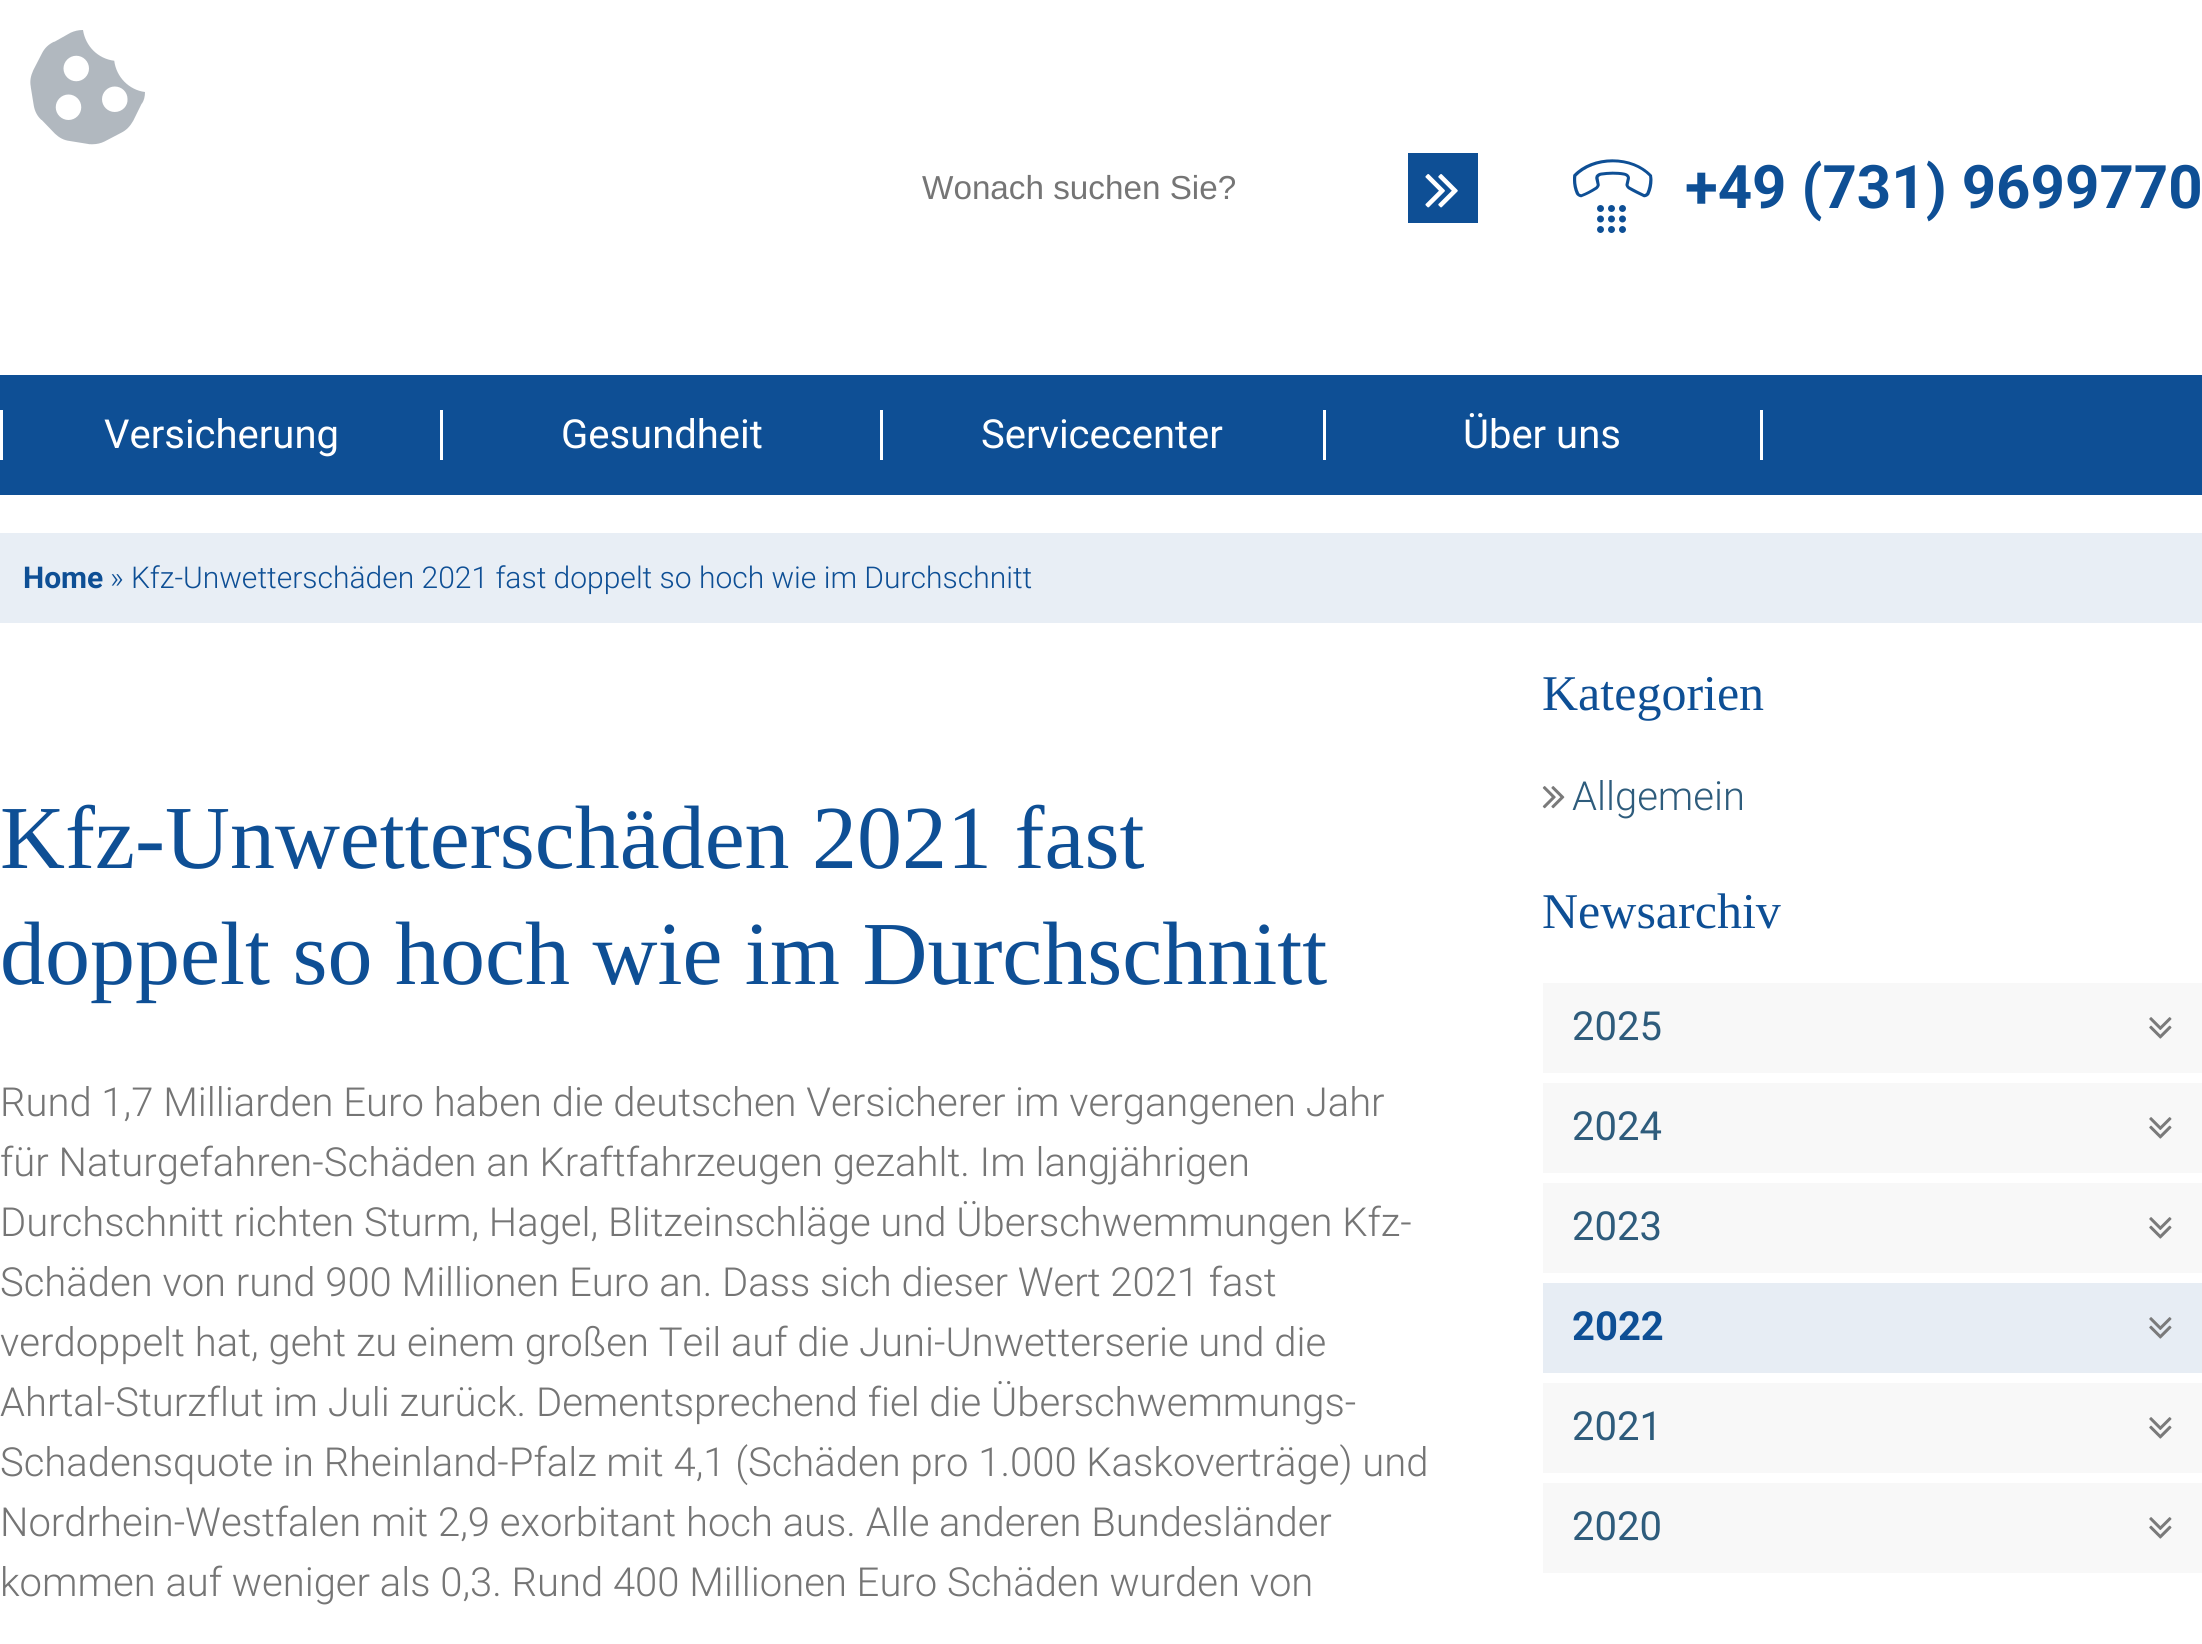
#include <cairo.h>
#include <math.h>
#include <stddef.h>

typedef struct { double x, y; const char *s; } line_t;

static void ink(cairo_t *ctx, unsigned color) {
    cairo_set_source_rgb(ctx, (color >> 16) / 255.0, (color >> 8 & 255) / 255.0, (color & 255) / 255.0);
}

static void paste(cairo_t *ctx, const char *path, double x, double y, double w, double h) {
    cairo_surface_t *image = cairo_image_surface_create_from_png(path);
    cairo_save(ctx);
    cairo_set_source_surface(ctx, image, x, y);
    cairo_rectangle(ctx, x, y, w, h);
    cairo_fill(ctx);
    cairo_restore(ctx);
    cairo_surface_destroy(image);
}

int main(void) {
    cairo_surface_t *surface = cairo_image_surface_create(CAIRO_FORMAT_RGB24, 2202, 1644);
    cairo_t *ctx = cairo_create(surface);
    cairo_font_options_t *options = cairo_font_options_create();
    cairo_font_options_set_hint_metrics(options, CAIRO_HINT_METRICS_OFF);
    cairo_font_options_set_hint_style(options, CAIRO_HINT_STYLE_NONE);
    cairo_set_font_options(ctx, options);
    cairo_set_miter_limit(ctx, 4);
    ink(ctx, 0xFFFFFF);
    cairo_paint(ctx);
    paste(ctx, "media/1.png", 30, 30, 115, 115);
    cairo_select_font_face(ctx, "Liberation Sans", CAIRO_FONT_SLANT_NORMAL, CAIRO_FONT_WEIGHT_NORMAL);
    cairo_set_font_size(ctx, 33.25);
    ink(ctx, 0x757575);
    cairo_move_to(ctx, 922, 199);
    cairo_show_text(ctx, "Wonach suchen Sie?");
    ink(ctx, 0x0E4F95);
    cairo_rectangle(ctx, 1408, 153, 70, 70);
    cairo_fill(ctx);
    paste(ctx, "media/2.png", 1425, 174, 33, 34);
    paste(ctx, "media/3.png", 1573, 159, 80, 74);
    cairo_select_font_face(ctx, "Roboto", CAIRO_FONT_SLANT_NORMAL, CAIRO_FONT_WEIGHT_BOLD);
    cairo_set_font_size(ctx, 60);
    cairo_move_to(ctx, 1685, 208);
    cairo_show_text(ctx, "+49 (731) 9699770");
    cairo_rectangle(ctx, 0, 375, 2202, 120);
    cairo_fill(ctx);
    ink(ctx, 0xFFFFFF);
    cairo_rectangle(ctx, 0, 410, 3, 50);
    cairo_fill(ctx);
    cairo_select_font_face(ctx, "Roboto", CAIRO_FONT_SLANT_NORMAL, CAIRO_FONT_WEIGHT_NORMAL);
    cairo_set_font_size(ctx, 40);
    cairo_move_to(ctx, 104, 448);
    cairo_show_text(ctx, "Versicherung");
    cairo_rectangle(ctx, 440, 410, 3, 50);
    cairo_fill(ctx);
    cairo_move_to(ctx, 561, 448);
    cairo_show_text(ctx, "Gesundheit");
    cairo_rectangle(ctx, 880, 410, 3, 50);
    cairo_fill(ctx);
    cairo_move_to(ctx, 981, 448);
    cairo_show_text(ctx, "Servicecenter");
    cairo_rectangle(ctx, 1760, 410, 3, 50);
    cairo_fill(ctx);
    cairo_rectangle(ctx, 1323, 410, 3, 50);
    cairo_fill(ctx);
    cairo_move_to(ctx, 1463, 448);
    cairo_show_text(ctx, "Über uns");
    ink(ctx, 0xE8EEF5);
    cairo_rectangle(ctx, 0, 533, 2202, 90);
    cairo_fill(ctx);
    cairo_select_font_face(ctx, "Roboto", CAIRO_FONT_SLANT_NORMAL, CAIRO_FONT_WEIGHT_BOLD);
    cairo_set_font_size(ctx, 30);
    ink(ctx, 0x0E4F95);
    cairo_move_to(ctx, 23, 588);
    cairo_show_text(ctx, "Home");
    cairo_select_font_face(ctx, "Roboto Light", CAIRO_FONT_SLANT_NORMAL, CAIRO_FONT_WEIGHT_NORMAL);
    cairo_move_to(ctx, 110, 588);
    cairo_show_text(ctx, "» Kfz-Unwetterschäden 2021 fast doppelt so hoch wie im Durchschnitt");
    cairo_select_font_face(ctx, "Liberation Serif", CAIRO_FONT_SLANT_NORMAL, CAIRO_FONT_WEIGHT_NORMAL);
    cairo_set_font_size(ctx, 90);
    cairo_move_to(ctx, 0, 868);
    cairo_show_text(ctx, "Kfz-Unwetterschäden 2021 fast");
    cairo_move_to(ctx, 0, 984);
    cairo_show_text(ctx, "doppelt so hoch wie im Durchschnitt");
    cairo_select_font_face(ctx, "Roboto Light", CAIRO_FONT_SLANT_NORMAL, CAIRO_FONT_WEIGHT_NORMAL);
    cairo_set_font_size(ctx, 40);
    ink(ctx, 0x757575);
    {
        static const line_t items[] = {
            {0, 1116, "Rund 1,7 Milliarden Euro haben die deutschen Versicherer im vergangenen Jahr"},
            {0, 1176, "für Naturgefahren-Schäden an Kraftfahrzeugen gezahlt. Im langjährigen"},
            {0, 1236, "Durchschnitt richten Sturm, Hagel, Blitzeinschläge und Überschwemmungen Kfz-"},
            {0, 1296, "Schäden von rund 900 Millionen Euro an. Dass sich dieser Wert 2021 fast"},
            {0, 1356, "verdoppelt hat, geht zu einem großen Teil auf die Juni-Unwetterserie und die"},
            {0, 1416, "Ahrtal-Sturzflut im Juli zurück. Dementsprechend fiel die Überschwemmungs-"},
            {0, 1476, "Schadensquote in Rheinland-Pfalz mit 4,1 (Schäden pro 1.000 Kaskoverträge) und"},
            {0, 1536, "Nordrhein-Westfalen mit 2,9 exorbitant hoch aus. Alle anderen Bundesländer"},
            {0, 1596, "kommen auf weniger als 0,3. Rund 400 Millionen Euro Schäden wurden von"},
        };
        for (size_t i = 0; i < sizeof items / sizeof *items; i++) {
            cairo_move_to(ctx, items[i].x, items[i].y);
            cairo_show_text(ctx, items[i].s);
        }
    }
    cairo_select_font_face(ctx, "Liberation Serif", CAIRO_FONT_SLANT_NORMAL, CAIRO_FONT_WEIGHT_NORMAL);
    cairo_set_font_size(ctx, 50);
    ink(ctx, 0x0E4F95);
    cairo_move_to(ctx, 1542, 710);
    cairo_show_text(ctx, "Kategorien");
    paste(ctx, "media/4.png", 1542, 786, 23, 23);
    cairo_select_font_face(ctx, "Roboto Light", CAIRO_FONT_SLANT_NORMAL, CAIRO_FONT_WEIGHT_NORMAL);
    cairo_set_font_size(ctx, 40);
    ink(ctx, 0x2E5C7C);
    cairo_move_to(ctx, 1572, 810);
    cairo_show_text(ctx, "Allgemein");
    cairo_select_font_face(ctx, "Liberation Serif", CAIRO_FONT_SLANT_NORMAL, CAIRO_FONT_WEIGHT_NORMAL);
    cairo_set_font_size(ctx, 50);
    ink(ctx, 0x0E4F95);
    cairo_move_to(ctx, 1542, 928);
    cairo_show_text(ctx, "Newsarchiv");
    ink(ctx, 0xF8F8F8);
    cairo_rectangle(ctx, 1543, 983, 659, 90);
    cairo_fill(ctx);
    cairo_select_font_face(ctx, "Roboto", CAIRO_FONT_SLANT_NORMAL, CAIRO_FONT_WEIGHT_NORMAL);
    cairo_set_font_size(ctx, 40);
    ink(ctx, 0x2E5C7C);
    cairo_move_to(ctx, 1572, 1040);
    cairo_show_text(ctx, "2025");
    paste(ctx, "media/5.png", 2149, 1017, 23, 22);
    ink(ctx, 0xF8F8F8);
    cairo_rectangle(ctx, 1543, 1083, 659, 90);
    cairo_fill(ctx);
    ink(ctx, 0x2E5C7C);
    cairo_move_to(ctx, 1572, 1140);
    cairo_show_text(ctx, "2024");
    paste(ctx, "media/5.png", 2149, 1117, 23, 22);
    ink(ctx, 0xF8F8F8);
    cairo_rectangle(ctx, 1543, 1183, 659, 90);
    cairo_fill(ctx);
    ink(ctx, 0x2E5C7C);
    cairo_move_to(ctx, 1572, 1240);
    cairo_show_text(ctx, "2023");
    paste(ctx, "media/5.png", 2149, 1217, 23, 22);
    ink(ctx, 0xE7EDF4);
    cairo_rectangle(ctx, 1543, 1283, 659, 90);
    cairo_fill(ctx);
    cairo_select_font_face(ctx, "Roboto", CAIRO_FONT_SLANT_NORMAL, CAIRO_FONT_WEIGHT_BOLD);
    ink(ctx, 0x0E4F95);
    cairo_move_to(ctx, 1572, 1340);
    cairo_show_text(ctx, "2022");
    paste(ctx, "media/6.png", 2149, 1317, 23, 22);
    ink(ctx, 0xF8F8F8);
    cairo_rectangle(ctx, 1543, 1383, 659, 90);
    cairo_fill(ctx);
    cairo_select_font_face(ctx, "Roboto", CAIRO_FONT_SLANT_NORMAL, CAIRO_FONT_WEIGHT_NORMAL);
    ink(ctx, 0x2E5C7C);
    cairo_move_to(ctx, 1572, 1440);
    cairo_show_text(ctx, "2021");
    paste(ctx, "media/5.png", 2149, 1417, 23, 22);
    ink(ctx, 0xF8F8F8);
    cairo_rectangle(ctx, 1543, 1483, 659, 90);
    cairo_fill(ctx);
    ink(ctx, 0x2E5C7C);
    cairo_move_to(ctx, 1572, 1540);
    cairo_show_text(ctx, "2020");
    paste(ctx, "media/5.png", 2149, 1517, 23, 22);
    cairo_surface_write_to_png(surface, "image.png");
    cairo_font_options_destroy(options);
    cairo_destroy(ctx);
    cairo_surface_destroy(surface);
    return 0;
}
